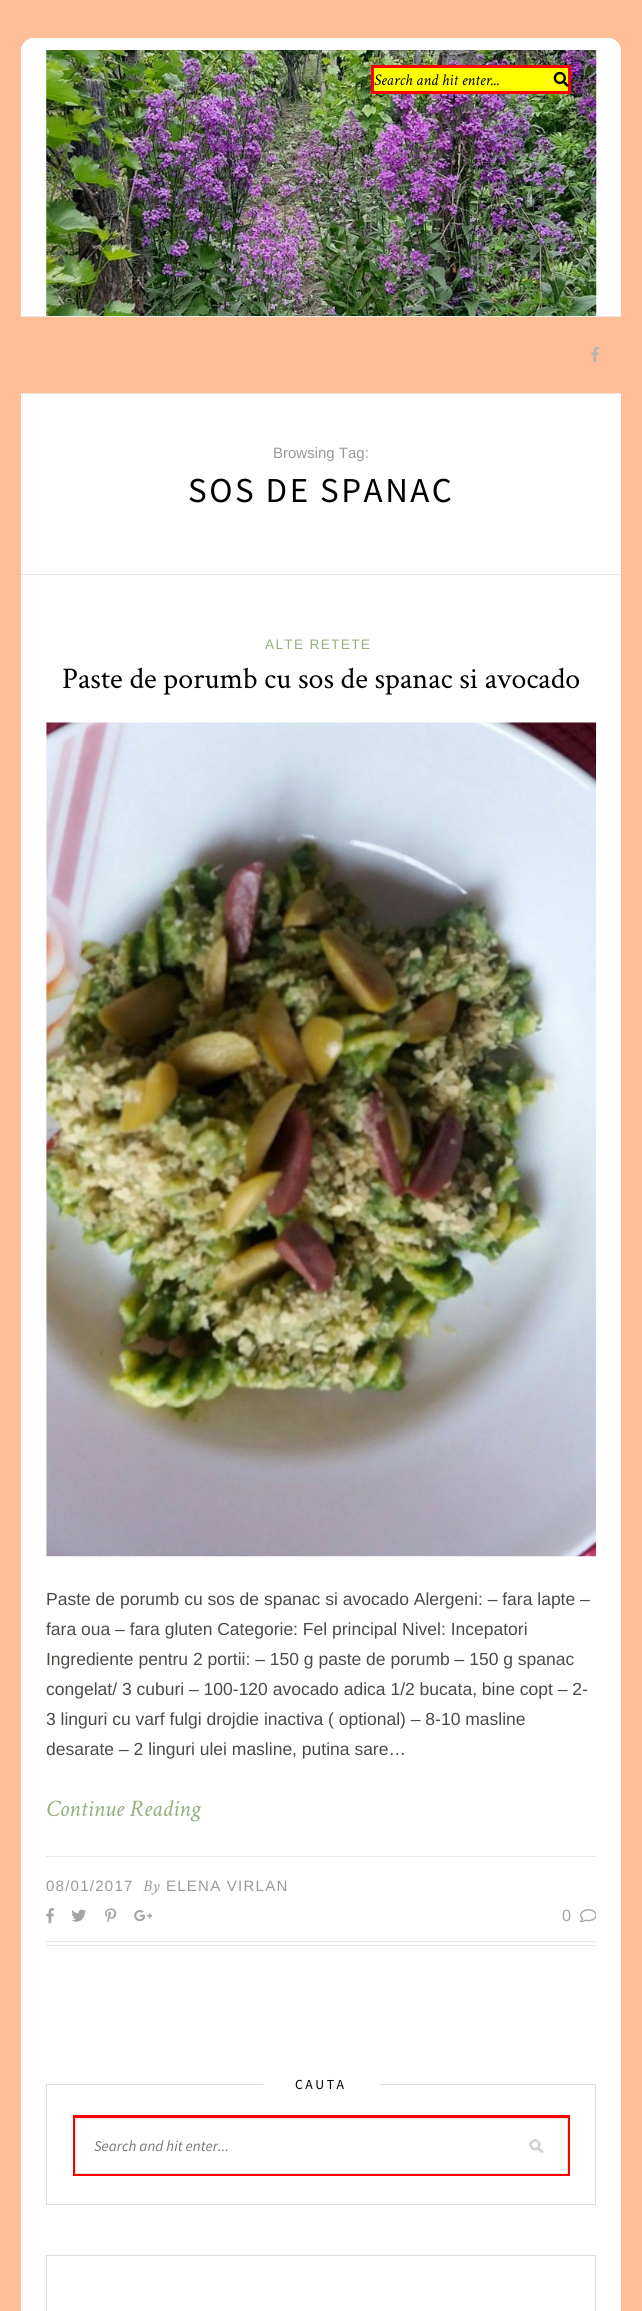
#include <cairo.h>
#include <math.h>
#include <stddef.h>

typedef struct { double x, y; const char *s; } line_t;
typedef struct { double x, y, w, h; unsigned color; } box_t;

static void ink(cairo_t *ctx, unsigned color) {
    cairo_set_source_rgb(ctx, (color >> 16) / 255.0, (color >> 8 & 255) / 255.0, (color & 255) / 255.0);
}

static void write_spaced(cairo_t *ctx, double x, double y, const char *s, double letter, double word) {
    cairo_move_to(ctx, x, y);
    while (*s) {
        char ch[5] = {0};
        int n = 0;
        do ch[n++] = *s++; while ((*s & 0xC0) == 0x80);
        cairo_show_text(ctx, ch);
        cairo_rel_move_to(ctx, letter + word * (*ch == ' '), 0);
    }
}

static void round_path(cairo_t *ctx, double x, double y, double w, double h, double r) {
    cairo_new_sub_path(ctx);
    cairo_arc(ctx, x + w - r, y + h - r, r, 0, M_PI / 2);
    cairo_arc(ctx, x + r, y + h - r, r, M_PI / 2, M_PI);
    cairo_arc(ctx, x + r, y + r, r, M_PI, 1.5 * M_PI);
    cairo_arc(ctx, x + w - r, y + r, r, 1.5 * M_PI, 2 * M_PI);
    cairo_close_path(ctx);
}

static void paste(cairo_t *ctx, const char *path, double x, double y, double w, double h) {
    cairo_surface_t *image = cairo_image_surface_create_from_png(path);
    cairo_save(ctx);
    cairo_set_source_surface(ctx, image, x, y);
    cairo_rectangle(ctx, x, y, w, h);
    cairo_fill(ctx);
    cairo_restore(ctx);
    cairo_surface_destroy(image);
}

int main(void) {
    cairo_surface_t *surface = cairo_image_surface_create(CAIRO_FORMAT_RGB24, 642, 2311);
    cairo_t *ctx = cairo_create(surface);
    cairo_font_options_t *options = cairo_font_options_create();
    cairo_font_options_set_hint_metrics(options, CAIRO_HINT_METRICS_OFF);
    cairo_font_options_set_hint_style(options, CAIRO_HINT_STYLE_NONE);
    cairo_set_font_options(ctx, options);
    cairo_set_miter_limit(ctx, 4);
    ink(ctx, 0xFFBE98);
    cairo_paint(ctx);
    ink(ctx, 0xFFFFFF);
    round_path(ctx, 21, 38, 600, 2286, 13);
    cairo_fill(ctx);
    cairo_new_path(ctx);
    cairo_move_to(ctx, 34, 38);
    cairo_line_to(ctx, 608, 38);
    cairo_curve_to(ctx, 615, 38, 621, 44, 621, 51);
    cairo_line_to(ctx, 621, 316);
    cairo_line_to(ctx, 21, 316);
    cairo_line_to(ctx, 21, 51);
    cairo_curve_to(ctx, 21, 44, 27, 38, 34, 38);
    cairo_close_path(ctx);
    cairo_fill(ctx);
    paste(ctx, "media/1.png", 46, 50, 551, 266);
    ink(ctx, 0xFFFF00);
    cairo_rectangle(ctx, 372.5, 66.5, 197, 26);
    cairo_fill_preserve(ctx);
    ink(ctx, 0xFF0000);
    cairo_set_line_width(ctx, 3);
    cairo_stroke(ctx);
    cairo_select_font_face(ctx, "Crimson Text", CAIRO_FONT_SLANT_ITALIC, CAIRO_FONT_WEIGHT_NORMAL);
    cairo_set_font_size(ctx, 16.25);
    ink(ctx, 0x000000);
    cairo_move_to(ctx, 374, 85);
    cairo_show_text(ctx, "Search and hit enter...");
    paste(ctx, "media/2.png", 553, 71, 16, 16);
    {
        static const box_t items[] = {
            {21, 317, 600, 76, 0xFFBE98},
            {21, 316, 600, 1, 0xEAE8E0},
            {21, 393, 600, 1, 0xEAE8E0},
        };
        for (size_t i = 0; i < sizeof items / sizeof *items; i++) {
            ink(ctx, items[i].color);
            cairo_rectangle(ctx, items[i].x, items[i].y, items[i].w, items[i].h);
            cairo_fill(ctx);
        }
    }
    paste(ctx, "media/3.png", 591, 346, 8, 16);
    cairo_rectangle(ctx, 21, 574, 600, 1);
    cairo_fill(ctx);
    cairo_select_font_face(ctx, "Liberation Sans", CAIRO_FONT_SLANT_NORMAL, CAIRO_FONT_WEIGHT_NORMAL);
    cairo_set_font_size(ctx, 15);
    ink(ctx, 0x999999);
    cairo_move_to(ctx, 273, 458);
    cairo_show_text(ctx, "Browsing Tag:");
    cairo_select_font_face(ctx, "Source Sans Pro", CAIRO_FONT_SLANT_NORMAL, CAIRO_FONT_WEIGHT_NORMAL);
    cairo_set_font_size(ctx, 35);
    ink(ctx, 0x000000);
    write_spaced(ctx, 188, 502, "SOS DE SPANAC", 2.5, 0);
    cairo_select_font_face(ctx, "Liberation Sans", CAIRO_FONT_SLANT_NORMAL, CAIRO_FONT_WEIGHT_NORMAL);
    cairo_set_font_size(ctx, 13.75);
    ink(ctx, 0x95AF7E);
    write_spaced(ctx, 265, 649, "ALTE RETETE", 1.25, 0);
    cairo_select_font_face(ctx, "Crimson Text", CAIRO_FONT_SLANT_NORMAL, CAIRO_FONT_WEIGHT_NORMAL);
    cairo_set_font_size(ctx, 30);
    ink(ctx, 0x000000);
    cairo_move_to(ctx, 62, 688);
    cairo_show_text(ctx, "Paste de porumb cu sos de spanac si avocado");
    paste(ctx, "media/4.png", 46, 722, 551, 835);
    cairo_select_font_face(ctx, "Liberation Sans", CAIRO_FONT_SLANT_NORMAL, CAIRO_FONT_WEIGHT_NORMAL);
    cairo_set_font_size(ctx, 17.5);
    ink(ctx, 0x4C4A47);
    {
        static const line_t items[] = {
            {46, 1605, "Paste de porumb cu sos de spanac si avocado Alergeni: – fara lapte –"},
            {46, 1635, "fara oua – fara gluten Categorie: Fel principal Nivel: Incepatori"},
            {46, 1665, "Ingrediente pentru 2 portii: – 150 g paste de porumb – 150 g spanac"},
            {46, 1695, "congelat/ 3 cuburi – 100-120 avocado adica 1/2 bucata, bine copt – 2-"},
            {46, 1725, "3 linguri cu varf fulgi drojdie inactiva ( optional) – 8-10 masline"},
            {46, 1755, "desarate – 2 linguri ulei masline, putina sare…"},
        };
        for (size_t i = 0; i < sizeof items / sizeof *items; i++) {
            cairo_move_to(ctx, items[i].x, items[i].y);
            cairo_show_text(ctx, items[i].s);
        }
    }
    cairo_select_font_face(ctx, "Crimson Text", CAIRO_FONT_SLANT_ITALIC, CAIRO_FONT_WEIGHT_NORMAL);
    cairo_set_font_size(ctx, 23.75);
    ink(ctx, 0x95AF7E);
    cairo_move_to(ctx, 46, 1816);
    cairo_show_text(ctx, "Continue Reading");
    {
        static const box_t items[] = {
            {46, 1856, 550, 1, 0xE8E8E8},
            {46, 1941, 550, 1, 0xE5E5E5},
            {46, 1945, 550, 1, 0xE5E5E5},
        };
        for (size_t i = 0; i < sizeof items / sizeof *items; i++) {
            ink(ctx, items[i].color);
            cairo_rectangle(ctx, items[i].x, items[i].y, items[i].w, items[i].h);
            cairo_fill(ctx);
        }
    }
    cairo_select_font_face(ctx, "Liberation Sans", CAIRO_FONT_SLANT_NORMAL, CAIRO_FONT_WEIGHT_NORMAL);
    cairo_set_font_size(ctx, 15);
    ink(ctx, 0x999999);
    write_spaced(ctx, 46, 1891, "08/01/2017", 1.25, 0);
    cairo_select_font_face(ctx, "Crimson Text", CAIRO_FONT_SLANT_ITALIC, CAIRO_FONT_WEIGHT_NORMAL);
    cairo_set_font_size(ctx, 16.25);
    cairo_move_to(ctx, 143, 1891);
    cairo_show_text(ctx, "By");
    cairo_select_font_face(ctx, "Liberation Sans", CAIRO_FONT_SLANT_NORMAL, CAIRO_FONT_WEIGHT_NORMAL);
    cairo_set_font_size(ctx, 15);
    write_spaced(ctx, 166, 1891, "ELENA VIRLAN", 1.25, 0);
    paste(ctx, "media/5.png", 46, 1908, 8, 16);
    paste(ctx, "media/6.png", 71, 1909, 15, 13);
    paste(ctx, "media/7.png", 105, 1908, 12, 15);
    paste(ctx, "media/8.png", 134, 1910, 19, 12);
    cairo_set_font_size(ctx, 16.25);
    ink(ctx, 0xA5A5A5);
    cairo_move_to(ctx, 562, 1921);
    cairo_show_text(ctx, "0");
    paste(ctx, "media/9.png", 580, 1909, 16, 14);
    cairo_rectangle(ctx, 46.5, 2084.5, 549, 120);
    ink(ctx, 0xDDDDDD);
    cairo_set_line_width(ctx, 1);
    cairo_stroke(ctx);
    ink(ctx, 0xFFFFFF);
    cairo_rectangle(ctx, 73, 2084, 497, 1);
    cairo_fill(ctx);
    ink(ctx, 0xDDDDDD);
    cairo_rectangle(ctx, 73, 2084, 190, 1);
    cairo_fill(ctx);
    cairo_select_font_face(ctx, "Source Sans Pro", CAIRO_FONT_SLANT_NORMAL, CAIRO_FONT_WEIGHT_NORMAL);
    cairo_set_font_size(ctx, 13.75);
    ink(ctx, 0x000000);
    write_spaced(ctx, 295, 2089, "CAUTA", 2.5, 0);
    ink(ctx, 0xDDDDDD);
    cairo_rectangle(ctx, 380, 2084, 190, 1);
    cairo_fill(ctx);
    cairo_rectangle(ctx, 74.5, 2116.5, 494, 58);
    ink(ctx, 0xFF0000);
    cairo_set_line_width(ctx, 3);
    cairo_stroke(ctx);
    paste(ctx, "media/10.png", 528, 2138, 16, 16);
    cairo_rectangle(ctx, 75.5, 2118.5, 492, 55);
    ink(ctx, 0xE5E5E5);
    cairo_set_line_width(ctx, 1);
    cairo_stroke(ctx);
    cairo_select_font_face(ctx, "Source Sans Pro", CAIRO_FONT_SLANT_ITALIC, CAIRO_FONT_WEIGHT_NORMAL);
    cairo_set_font_size(ctx, 15);
    ink(ctx, 0x757575);
    cairo_move_to(ctx, 94, 2151);
    cairo_show_text(ctx, "Search and hit enter...");
    cairo_rectangle(ctx, 46.5, 2255.5, 549, 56);
    ink(ctx, 0xDDDDDD);
    cairo_stroke(ctx);
    cairo_surface_write_to_png(surface, "image.png");
    cairo_font_options_destroy(options);
    cairo_destroy(ctx);
    cairo_surface_destroy(surface);
    return 0;
}
